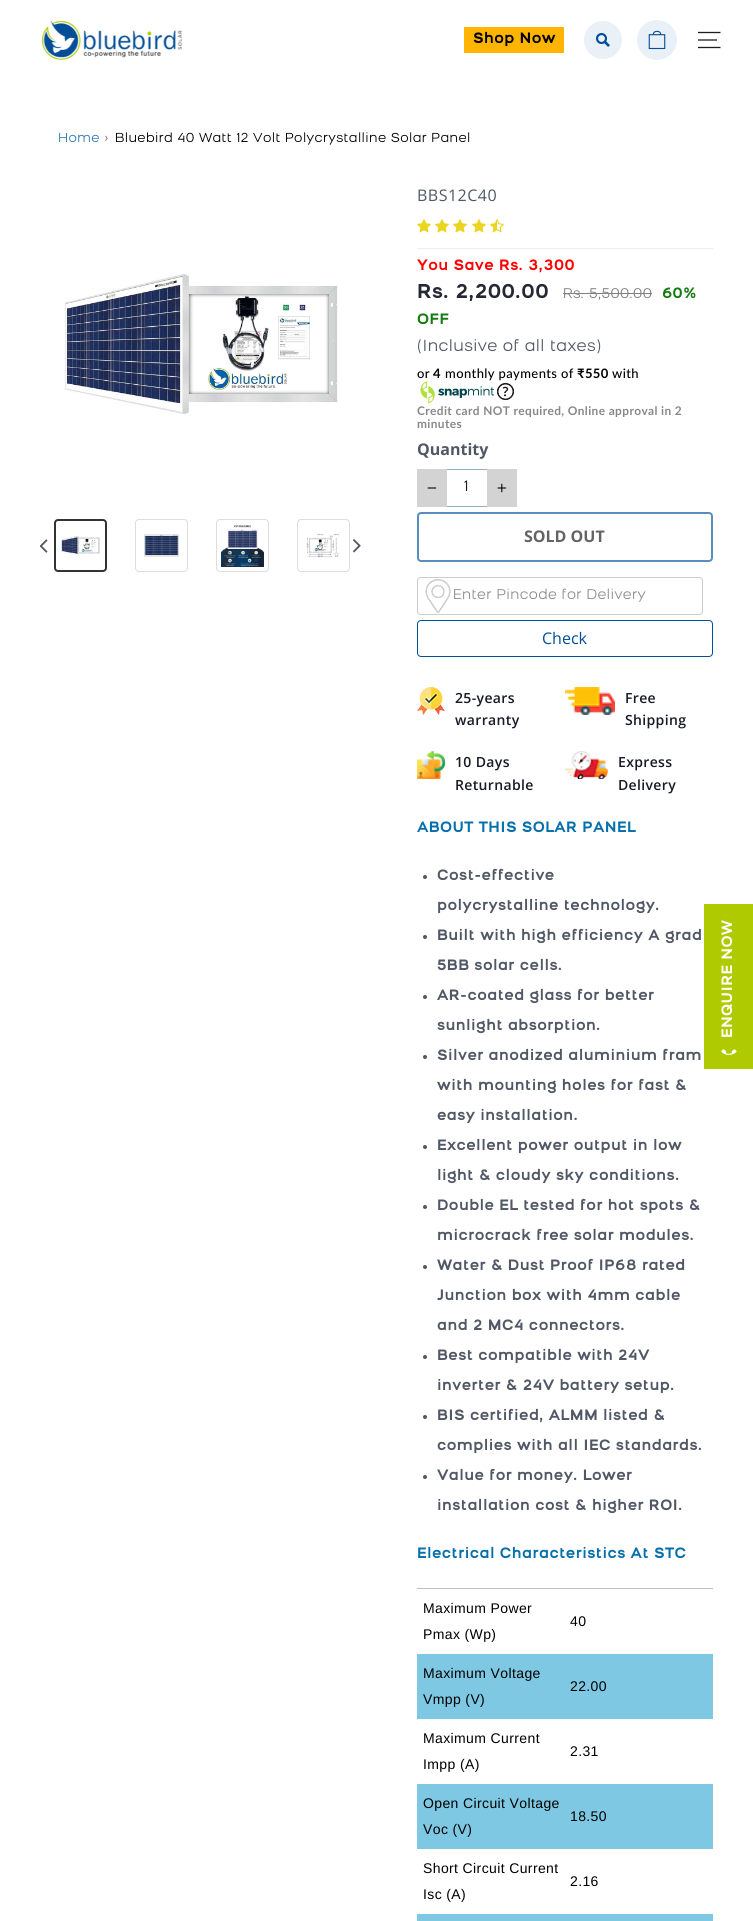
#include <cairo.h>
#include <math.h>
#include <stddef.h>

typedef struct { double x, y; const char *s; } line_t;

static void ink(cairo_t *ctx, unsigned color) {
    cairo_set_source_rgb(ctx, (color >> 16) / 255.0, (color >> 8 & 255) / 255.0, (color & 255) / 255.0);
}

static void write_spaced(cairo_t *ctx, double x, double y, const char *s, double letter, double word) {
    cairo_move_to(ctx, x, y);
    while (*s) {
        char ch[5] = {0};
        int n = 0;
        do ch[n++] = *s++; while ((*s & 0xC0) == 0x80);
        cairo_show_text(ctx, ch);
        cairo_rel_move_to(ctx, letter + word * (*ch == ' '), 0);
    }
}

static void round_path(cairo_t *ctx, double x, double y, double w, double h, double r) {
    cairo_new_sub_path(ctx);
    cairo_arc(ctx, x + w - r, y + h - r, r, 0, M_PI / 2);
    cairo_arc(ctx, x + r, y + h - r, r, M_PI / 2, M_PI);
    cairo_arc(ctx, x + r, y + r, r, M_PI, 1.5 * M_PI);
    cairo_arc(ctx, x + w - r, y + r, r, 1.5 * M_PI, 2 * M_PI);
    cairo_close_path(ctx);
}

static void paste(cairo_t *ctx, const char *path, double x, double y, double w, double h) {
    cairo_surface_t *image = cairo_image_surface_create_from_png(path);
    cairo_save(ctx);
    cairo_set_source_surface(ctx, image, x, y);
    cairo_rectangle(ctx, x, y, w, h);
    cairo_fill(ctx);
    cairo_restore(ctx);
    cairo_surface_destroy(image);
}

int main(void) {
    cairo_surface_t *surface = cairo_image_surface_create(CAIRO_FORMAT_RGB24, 753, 1921);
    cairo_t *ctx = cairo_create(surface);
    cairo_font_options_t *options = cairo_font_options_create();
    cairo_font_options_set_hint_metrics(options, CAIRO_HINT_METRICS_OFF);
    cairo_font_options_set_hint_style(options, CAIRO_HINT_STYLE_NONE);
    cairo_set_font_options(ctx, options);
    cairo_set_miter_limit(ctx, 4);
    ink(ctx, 0xFFFFFF);
    cairo_paint(ctx);
    paste(ctx, "media/1.png", 41, 20, 141, 40);
    ink(ctx, 0xFFB400);
    cairo_rectangle(ctx, 464, 27, 100, 26);
    cairo_fill(ctx);
    cairo_select_font_face(ctx, "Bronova", CAIRO_FONT_SLANT_NORMAL, CAIRO_FONT_WEIGHT_BOLD);
    cairo_set_font_size(ctx, 15);
    ink(ctx, 0x000000);
    write_spaced(ctx, 473, 43, "Shop Now", 0.38, 0);
    ink(ctx, 0xEAF0F7);
    cairo_new_path(ctx);
    cairo_arc(ctx, 603, 40, 19, 0, 2 * M_PI);
    cairo_fill(ctx);
    paste(ctx, "media/2.png", 596, 33, 14, 14);
    cairo_arc(ctx, 657, 40, 20, 0, 2 * M_PI);
    cairo_fill(ctx);
    paste(ctx, "media/3.png", 648, 30, 18, 20);
    cairo_new_path(ctx);
    cairo_move_to(ctx, 698, 32.5);
    cairo_line_to(ctx, 720.5, 32.5);
    cairo_move_to(ctx, 698, 40);
    cairo_line_to(ctx, 717, 40);
    cairo_move_to(ctx, 698, 47.5);
    cairo_line_to(ctx, 720.5, 47.5);
    ink(ctx, 0x1C1D1D);
    cairo_set_line_width(ctx, 1.3);
    cairo_stroke(ctx);
    cairo_select_font_face(ctx, "Bronova", CAIRO_FONT_SLANT_NORMAL, CAIRO_FONT_WEIGHT_NORMAL);
    cairo_set_font_size(ctx, 13);
    ink(ctx, 0x337AB7);
    write_spaced(ctx, 58, 142, "Home", 0.38, 0);
    ink(ctx, 0x515865);
    write_spaced(ctx, 104, 142, "›", 0.38, 0);
    ink(ctx, 0x000000);
    write_spaced(ctx, 115, 142, "Bluebird 40 Watt 12 Volt Polycrystalline Solar Panel", 0.38, 0);
    paste(ctx, "media/4.png", 65, 273, 273, 141);
    paste(ctx, "media/5.png", 40, 539, 8, 14);
    round_path(ctx, 55, 520, 51, 51, 3);
    ink(ctx, 0x333333);
    cairo_set_line_width(ctx, 2);
    cairo_stroke(ctx);
    paste(ctx, "media/6.png", 61, 535, 39, 21);
    round_path(ctx, 135.5, 519.5, 52, 52, 3.5);
    ink(ctx, 0xDDDDDD);
    cairo_set_line_width(ctx, 1);
    cairo_stroke(ctx);
    paste(ctx, "media/7.png", 144, 534, 35, 23);
    round_path(ctx, 216.5, 519.5, 52, 52, 3.5);
    cairo_stroke(ctx);
    paste(ctx, "media/8.png", 221, 525, 43, 42);
    round_path(ctx, 297.5, 519.5, 52, 52, 3.5);
    cairo_stroke(ctx);
    paste(ctx, "media/9.png", 306, 533, 34, 25);
    paste(ctx, "media/10.png", 353, 539, 8, 14);
    cairo_select_font_face(ctx, "Open Sans", CAIRO_FONT_SLANT_NORMAL, CAIRO_FONT_WEIGHT_NORMAL);
    cairo_set_font_size(ctx, 16);
    ink(ctx, 0x515865);
    write_spaced(ctx, 417, 201, "BBS12C40", 0.5, 0);
    paste(ctx, "media/11.png", 417, 219, 14, 14);
    paste(ctx, "media/11.png", 435, 219, 14, 14);
    paste(ctx, "media/11.png", 453, 219, 14, 14);
    paste(ctx, "media/11.png", 472, 219, 14, 14);
    paste(ctx, "media/12.png", 490, 219, 14, 14);
    ink(ctx, 0xEEEEEE);
    cairo_rectangle(ctx, 417, 248, 296, 1);
    cairo_fill(ctx);
    cairo_select_font_face(ctx, "Bronova", CAIRO_FONT_SLANT_NORMAL, CAIRO_FONT_WEIGHT_BOLD);
    cairo_set_font_size(ctx, 15);
    ink(ctx, 0xFF0000);
    write_spaced(ctx, 417, 270, "You Save Rs. 3,300", 0.38, 0);
    cairo_set_font_size(ctx, 20);
    ink(ctx, 0x242734);
    write_spaced(ctx, 417, 298, "Rs. 2,200.00", 0.38, 0);
    cairo_select_font_face(ctx, "Bronova", CAIRO_FONT_SLANT_NORMAL, CAIRO_FONT_WEIGHT_NORMAL);
    cairo_set_font_size(ctx, 14);
    ink(ctx, 0x808080);
    write_spaced(ctx, 563, 298, "Rs. 5,500.00", 0.38, 0);
    cairo_rectangle(ctx, 563, 293, 89, 1);
    cairo_fill(ctx);
    cairo_select_font_face(ctx, "Bronova", CAIRO_FONT_SLANT_NORMAL, CAIRO_FONT_WEIGHT_BOLD);
    cairo_set_font_size(ctx, 15);
    ink(ctx, 0x147A11);
    write_spaced(ctx, 662, 298, "60%", 0.38, 0);
    write_spaced(ctx, 417, 324, "OFF", 0.38, 0);
    cairo_select_font_face(ctx, "Bronova", CAIRO_FONT_SLANT_NORMAL, CAIRO_FONT_WEIGHT_NORMAL);
    cairo_set_font_size(ctx, 16);
    ink(ctx, 0x515865);
    write_spaced(ctx, 417, 351, "(Inclusive of all taxes)", 0.38, 0);
    cairo_select_font_face(ctx, "Lato Medium", CAIRO_FONT_SLANT_NORMAL, CAIRO_FONT_WEIGHT_NORMAL);
    cairo_set_font_size(ctx, 13);
    ink(ctx, 0x000000);
    write_spaced(ctx, 417, 378, "or", 0.38, 0);
    cairo_select_font_face(ctx, "Lato", CAIRO_FONT_SLANT_NORMAL, CAIRO_FONT_WEIGHT_BOLD);
    write_spaced(ctx, 433, 378, "4", 0.38, 0);
    cairo_select_font_face(ctx, "Lato Medium", CAIRO_FONT_SLANT_NORMAL, CAIRO_FONT_WEIGHT_NORMAL);
    write_spaced(ctx, 445, 378, "monthly payments of", 0.38, 0);
    cairo_select_font_face(ctx, "Lato", CAIRO_FONT_SLANT_NORMAL, CAIRO_FONT_WEIGHT_BOLD);
    write_spaced(ctx, 577, 378, "₹550", 0.38, 0);
    cairo_select_font_face(ctx, "Lato Medium", CAIRO_FONT_SLANT_NORMAL, CAIRO_FONT_WEIGHT_NORMAL);
    write_spaced(ctx, 612, 378, "with", 0.38, 0);
    paste(ctx, "media/13.png", 420, 381, 74, 23);
    paste(ctx, "media/14.png", 497, 383, 17, 17);
    cairo_select_font_face(ctx, "Lato", CAIRO_FONT_SLANT_NORMAL, CAIRO_FONT_WEIGHT_BOLD);
    cairo_set_font_size(ctx, 11.9);
    ink(ctx, 0x888888);
    write_spaced(ctx, 417, 415, "Credit card NOT required, Online approval in 2", 0.38, 0);
    write_spaced(ctx, 417, 428, "minutes", 0.38, 0);
    cairo_select_font_face(ctx, "Open Sans", CAIRO_FONT_SLANT_NORMAL, CAIRO_FONT_WEIGHT_BOLD);
    cairo_set_font_size(ctx, 16);
    ink(ctx, 0x515865);
    cairo_move_to(ctx, 417, 455);
    cairo_show_text(ctx, "Quantity");
    cairo_rectangle(ctx, 417.5, 469.5, 99, 37);
    ink(ctx, 0x93ADC6);
    cairo_stroke(ctx);
    ink(ctx, 0xD3D3D3);
    cairo_rectangle(ctx, 417, 469, 30, 38);
    cairo_fill(ctx);
    paste(ctx, "media/15.png", 427, 487, 10, 2);
    cairo_select_font_face(ctx, "Bronova", CAIRO_FONT_SLANT_NORMAL, CAIRO_FONT_WEIGHT_NORMAL);
    cairo_set_font_size(ctx, 15);
    ink(ctx, 0x181B27);
    write_spaced(ctx, 464, 491, "1", 0.38, 0);
    ink(ctx, 0xD3D3D3);
    cairo_rectangle(ctx, 487, 469, 30, 38);
    cairo_fill(ctx);
    paste(ctx, "media/16.png", 497, 483, 10, 10);
    round_path(ctx, 418, 513, 294, 48, 3);
    ink(ctx, 0x5A8DBD);
    cairo_set_line_width(ctx, 2);
    cairo_stroke(ctx);
    cairo_select_font_face(ctx, "Open Sans", CAIRO_FONT_SLANT_NORMAL, CAIRO_FONT_WEIGHT_BOLD);
    cairo_set_font_size(ctx, 16);
    ink(ctx, 0x646464);
    cairo_move_to(ctx, 524, 542);
    cairo_show_text(ctx, "SOLD OUT");
    paste(ctx, "media/17.png", 425, 579, 26, 34);
    round_path(ctx, 417.5, 577.5, 285, 37, 3.5);
    ink(ctx, 0xCCCCCC);
    cairo_set_line_width(ctx, 1);
    cairo_stroke(ctx);
    cairo_select_font_face(ctx, "Bronova", CAIRO_FONT_SLANT_NORMAL, CAIRO_FONT_WEIGHT_NORMAL);
    cairo_set_font_size(ctx, 14);
    ink(ctx, 0x8C8D93);
    write_spaced(ctx, 453, 599, "Enter Pincode for Delivery", 0.35, 0);
    round_path(ctx, 417.5, 620.5, 295, 36, 3.5);
    ink(ctx, 0x014F99);
    cairo_stroke(ctx);
    cairo_select_font_face(ctx, "Open Sans", CAIRO_FONT_SLANT_NORMAL, CAIRO_FONT_WEIGHT_NORMAL);
    cairo_set_font_size(ctx, 16);
    cairo_move_to(ctx, 542, 644);
    cairo_show_text(ctx, "Check");
    paste(ctx, "media/18.png", 417, 687, 28, 28);
    cairo_select_font_face(ctx, "Open Sans SemiBold", CAIRO_FONT_SLANT_NORMAL, CAIRO_FONT_WEIGHT_NORMAL);
    cairo_set_font_size(ctx, 14);
    ink(ctx, 0x181B27);
    write_spaced(ctx, 455, 703, "25-years", 0.35, 0);
    write_spaced(ctx, 455, 725, "warranty", 0.35, 0);
    paste(ctx, "media/19.png", 565, 687, 50, 28);
    write_spaced(ctx, 625, 703, "Free", 0.35, 0);
    write_spaced(ctx, 625, 725, "Shipping", 0.35, 0);
    paste(ctx, "media/20.png", 417, 751, 28, 28);
    write_spaced(ctx, 455, 767, "10 Days", 0.35, 0);
    write_spaced(ctx, 455, 790, "Returnable", 0.35, 0);
    paste(ctx, "media/21.png", 565, 751, 43, 28);
    write_spaced(ctx, 618, 767, "Express", 0.35, 0);
    write_spaced(ctx, 618, 790, "Delivery", 0.35, 0);
    cairo_select_font_face(ctx, "Bronova", CAIRO_FONT_SLANT_NORMAL, CAIRO_FONT_WEIGHT_BOLD);
    cairo_set_font_size(ctx, 15);
    ink(ctx, 0x066FAC);
    write_spaced(ctx, 417, 832, "ABOUT THIS SOLAR PANEL", 0.38, 0);
    ink(ctx, 0x515865);
    cairo_new_path(ctx);
    cairo_arc(ctx, 425, 877, 2, 0, 2 * M_PI);
    cairo_fill(ctx);
    write_spaced(ctx, 437, 880, "Cost-effective", 0.38, 0);
    write_spaced(ctx, 437, 910, "polycrystalline technology.", 0.38, 0);
    cairo_new_path(ctx);
    cairo_arc(ctx, 425, 937, 2, 0, 2 * M_PI);
    cairo_fill(ctx);
    write_spaced(ctx, 437, 940, "Built with high efficiency A grad", 0.38, 0);
    write_spaced(ctx, 437, 970, "5BB solar cells.", 0.38, 0);
    cairo_new_path(ctx);
    cairo_arc(ctx, 425, 997, 2, 0, 2 * M_PI);
    cairo_fill(ctx);
    write_spaced(ctx, 437, 1000, "AR-coated glass for better", 0.38, 0);
    write_spaced(ctx, 437, 1030, "sunlight absorption.", 0.38, 0);
    cairo_new_path(ctx);
    cairo_arc(ctx, 425, 1057, 2, 0, 2 * M_PI);
    cairo_fill(ctx);
    {
        static const line_t items[] = {
            {437, 1060, "Silver anodized aluminium fram"},
            {437, 1090, "with mounting holes for fast &"},
            {437, 1120, "easy installation."},
        };
        for (size_t i = 0; i < sizeof items / sizeof *items; i++) {
            write_spaced(ctx, items[i].x, items[i].y, items[i].s, 0.38, 0);
        }
    }
    cairo_new_path(ctx);
    cairo_arc(ctx, 425, 1147, 2, 0, 2 * M_PI);
    cairo_fill(ctx);
    write_spaced(ctx, 437, 1150, "Excellent power output in low", 0.38, 0);
    write_spaced(ctx, 437, 1180, "light & cloudy sky conditions.", 0.38, 0);
    cairo_new_path(ctx);
    cairo_arc(ctx, 425, 1207, 2, 0, 2 * M_PI);
    cairo_fill(ctx);
    write_spaced(ctx, 437, 1210, "Double EL tested for hot spots &", 0.38, 0);
    write_spaced(ctx, 437, 1240, "microcrack free solar modules.", 0.38, 0);
    cairo_new_path(ctx);
    cairo_arc(ctx, 425, 1267, 2, 0, 2 * M_PI);
    cairo_fill(ctx);
    {
        static const line_t items[] = {
            {437, 1270, "Water & Dust Proof IP68 rated"},
            {437, 1300, "Junction box with 4mm cable"},
            {437, 1330, "and 2 MC4 connectors."},
        };
        for (size_t i = 0; i < sizeof items / sizeof *items; i++) {
            write_spaced(ctx, items[i].x, items[i].y, items[i].s, 0.38, 0);
        }
    }
    cairo_new_path(ctx);
    cairo_arc(ctx, 425, 1357, 2, 0, 2 * M_PI);
    cairo_fill(ctx);
    write_spaced(ctx, 437, 1360, "Best compatible with 24V", 0.38, 0);
    write_spaced(ctx, 437, 1390, "inverter & 24V battery setup.", 0.38, 0);
    cairo_new_path(ctx);
    cairo_arc(ctx, 425, 1417, 2, 0, 2 * M_PI);
    cairo_fill(ctx);
    write_spaced(ctx, 437, 1420, "BIS certified, ALMM listed &", 0.38, 0);
    write_spaced(ctx, 437, 1450, "complies with all IEC standards.", 0.38, 0);
    cairo_new_path(ctx);
    cairo_arc(ctx, 425, 1477, 2, 0, 2 * M_PI);
    cairo_fill(ctx);
    write_spaced(ctx, 437, 1480, "Value for money. Lower", 0.38, 0);
    write_spaced(ctx, 437, 1510, "installation cost & higher ROI.", 0.38, 0);
    ink(ctx, 0x066FAC);
    write_spaced(ctx, 417, 1558, "Electrical Characteristics At STC", 0.38, 0);
    cairo_select_font_face(ctx, "Liberation Sans", CAIRO_FONT_SLANT_NORMAL, CAIRO_FONT_WEIGHT_NORMAL);
    cairo_set_font_size(ctx, 14);
    ink(ctx, 0x000000);
    write_spaced(ctx, 423, 1613, "Maximum Power", 0.38, 0);
    write_spaced(ctx, 423, 1639, "Pmax (Wp)", 0.38, 0);
    ink(ctx, 0xC0C0C0);
    cairo_rectangle(ctx, 417, 1588, 296, 1);
    cairo_fill(ctx);
    ink(ctx, 0x000000);
    write_spaced(ctx, 570, 1626, "40", 0.38, 0);
    ink(ctx, 0x7EC8E3);
    cairo_rectangle(ctx, 417, 1654, 296, 65);
    cairo_fill(ctx);
    ink(ctx, 0x000000);
    {
        static const line_t items[] = {
            {423, 1678, "Maximum Voltage"},
            {423, 1704, "Vmpp (V)"},
            {570, 1691, "22.00"},
            {423, 1743, "Maximum Current"},
            {423, 1769, "Impp (A)"},
            {570, 1756, "2.31"},
        };
        for (size_t i = 0; i < sizeof items / sizeof *items; i++) {
            write_spaced(ctx, items[i].x, items[i].y, items[i].s, 0.38, 0);
        }
    }
    ink(ctx, 0x7EC8E3);
    cairo_rectangle(ctx, 417, 1784, 296, 65);
    cairo_fill(ctx);
    ink(ctx, 0x000000);
    {
        static const line_t items[] = {
            {423, 1808, "Open Circuit Voltage"},
            {423, 1834, "Voc (V)"},
            {570, 1821, "18.50"},
            {423, 1873, "Short Circuit Current"},
            {423, 1899, "Isc (A)"},
            {570, 1886, "2.16"},
        };
        for (size_t i = 0; i < sizeof items / sizeof *items; i++) {
            write_spaced(ctx, items[i].x, items[i].y, items[i].s, 0.38, 0);
        }
    }
    ink(ctx, 0x7EC8E3);
    cairo_rectangle(ctx, 417, 1914, 296, 7);
    cairo_fill(ctx);
    ink(ctx, 0xAFCB00);
    cairo_rectangle(ctx, 704, 904, 49, 165);
    cairo_fill(ctx);
    cairo_select_font_face(ctx, "Bronova", CAIRO_FONT_SLANT_NORMAL, CAIRO_FONT_WEIGHT_BOLD);
    cairo_set_font_size(ctx, 15);
    ink(ctx, 0xFFFFFF);
    cairo_save(ctx);
    cairo_translate(ctx, 732, 1038);
    cairo_rotate(ctx, -90 * M_PI / 180);
    write_spaced(ctx, 0, 0, "ENQUIRE NOW", 0.38, 0);
    cairo_restore(ctx);
    paste(ctx, "media/22.png", 721, 1049, 16, 6);
    cairo_surface_write_to_png(surface, "image.png");
    cairo_font_options_destroy(options);
    cairo_destroy(ctx);
    cairo_surface_destroy(surface);
    return 0;
}
